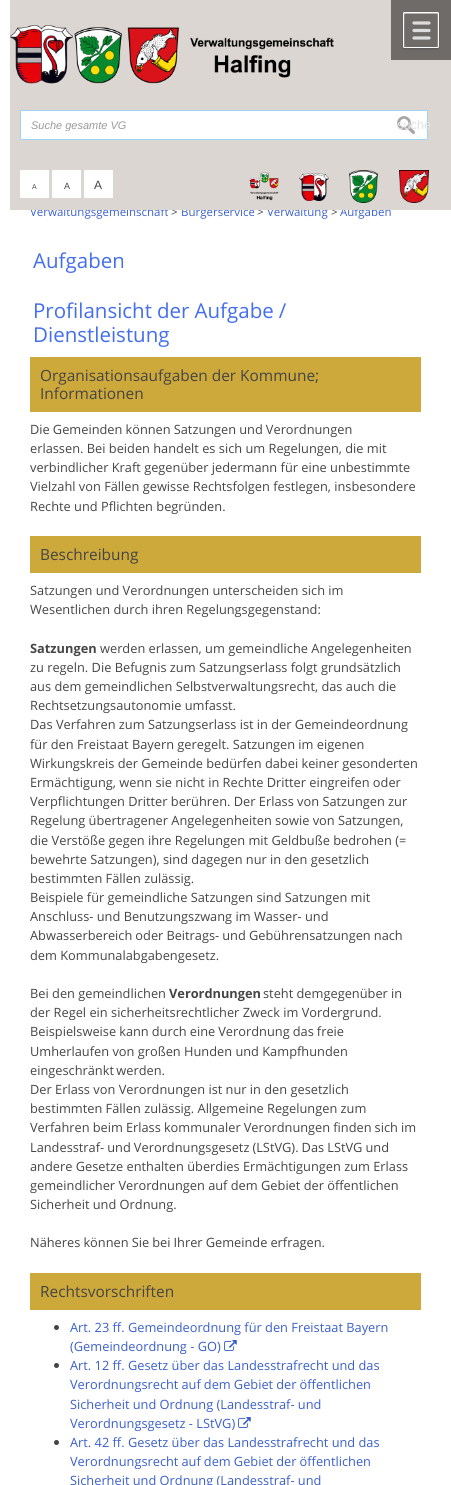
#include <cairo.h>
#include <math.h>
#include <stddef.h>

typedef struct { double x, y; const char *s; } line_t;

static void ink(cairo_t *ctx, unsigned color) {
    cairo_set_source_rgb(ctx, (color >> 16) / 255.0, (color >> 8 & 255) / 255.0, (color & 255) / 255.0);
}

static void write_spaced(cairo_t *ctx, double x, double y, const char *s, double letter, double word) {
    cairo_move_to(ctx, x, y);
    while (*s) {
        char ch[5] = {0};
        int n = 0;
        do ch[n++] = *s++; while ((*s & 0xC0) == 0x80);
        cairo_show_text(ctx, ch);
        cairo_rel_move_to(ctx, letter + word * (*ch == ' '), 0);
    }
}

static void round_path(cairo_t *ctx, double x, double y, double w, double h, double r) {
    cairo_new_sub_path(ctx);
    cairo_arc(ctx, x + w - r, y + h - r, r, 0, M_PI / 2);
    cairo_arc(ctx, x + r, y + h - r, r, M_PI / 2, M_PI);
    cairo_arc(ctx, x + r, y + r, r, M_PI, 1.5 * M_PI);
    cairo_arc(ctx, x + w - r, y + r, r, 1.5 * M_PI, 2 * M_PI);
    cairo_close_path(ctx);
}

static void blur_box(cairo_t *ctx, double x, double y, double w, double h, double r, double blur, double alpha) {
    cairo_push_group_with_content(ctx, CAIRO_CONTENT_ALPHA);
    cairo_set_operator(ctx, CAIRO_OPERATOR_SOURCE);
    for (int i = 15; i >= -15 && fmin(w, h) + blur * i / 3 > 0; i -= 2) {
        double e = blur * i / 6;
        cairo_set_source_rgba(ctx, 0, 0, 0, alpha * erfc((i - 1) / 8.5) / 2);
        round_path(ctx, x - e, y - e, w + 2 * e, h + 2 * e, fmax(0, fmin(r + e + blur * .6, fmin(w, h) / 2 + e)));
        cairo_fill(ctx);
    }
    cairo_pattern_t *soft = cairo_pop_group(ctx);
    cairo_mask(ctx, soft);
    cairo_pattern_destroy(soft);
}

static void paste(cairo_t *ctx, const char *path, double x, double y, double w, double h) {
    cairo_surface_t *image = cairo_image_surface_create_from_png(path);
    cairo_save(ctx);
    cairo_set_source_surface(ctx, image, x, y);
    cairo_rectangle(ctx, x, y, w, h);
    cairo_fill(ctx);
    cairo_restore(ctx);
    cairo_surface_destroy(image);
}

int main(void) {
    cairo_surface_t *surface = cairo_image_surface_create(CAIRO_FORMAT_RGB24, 451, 1485);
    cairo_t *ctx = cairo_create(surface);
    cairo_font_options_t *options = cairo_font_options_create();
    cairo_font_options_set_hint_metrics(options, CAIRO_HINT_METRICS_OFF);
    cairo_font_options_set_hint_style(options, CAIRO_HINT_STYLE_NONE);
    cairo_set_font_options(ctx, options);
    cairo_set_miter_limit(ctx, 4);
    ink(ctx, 0xFFFFFF);
    cairo_paint(ctx);
    cairo_select_font_face(ctx, "Open Sans", CAIRO_FONT_SLANT_NORMAL, CAIRO_FONT_WEIGHT_NORMAL);
    cairo_set_font_size(ctx, 11.5);
    ink(ctx, 0x3A5FCD);
    cairo_move_to(ctx, 30, 216);
    cairo_show_text(ctx, "Verwaltungsgemeinschaft");
    ink(ctx, 0x454545);
    cairo_move_to(ctx, 171, 216);
    cairo_show_text(ctx, ">");
    ink(ctx, 0x3A5FCD);
    cairo_move_to(ctx, 181, 216);
    cairo_show_text(ctx, "Bürgerservice");
    ink(ctx, 0x454545);
    cairo_move_to(ctx, 257, 216);
    cairo_show_text(ctx, ">");
    ink(ctx, 0x3A5FCD);
    cairo_move_to(ctx, 267, 216);
    cairo_show_text(ctx, "Verwaltung");
    ink(ctx, 0x454545);
    cairo_move_to(ctx, 331, 216);
    cairo_show_text(ctx, ">");
    ink(ctx, 0x3A5FCD);
    cairo_move_to(ctx, 340, 216);
    cairo_show_text(ctx, "Aufgaben");
    ink(ctx, 0xDCD6D2);
    cairo_rectangle(ctx, 10, 0, 441, 210);
    cairo_fill(ctx);
    paste(ctx, "media/1.png", 10, 25, 324, 59);
    ink(ctx, 0x6E6B69);
    cairo_rectangle(ctx, 391, 0, 60, 60);
    cairo_fill(ctx);
    cairo_save(ctx);
    cairo_set_fill_rule(ctx, CAIRO_FILL_RULE_EVEN_ODD);
    cairo_new_path(ctx);
    cairo_move_to(ctx, 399, 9);
    cairo_line_to(ctx, 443, 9);
    cairo_line_to(ctx, 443, 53);
    cairo_line_to(ctx, 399, 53);
    cairo_close_path(ctx);
    cairo_move_to(ctx, 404.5, 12);
    cairo_line_to(ctx, 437.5, 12);
    cairo_curve_to(ctx, 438.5, 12, 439, 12.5, 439, 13.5);
    cairo_line_to(ctx, 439, 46.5);
    cairo_curve_to(ctx, 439, 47.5, 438.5, 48, 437.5, 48);
    cairo_line_to(ctx, 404.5, 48);
    cairo_curve_to(ctx, 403.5, 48, 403, 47.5, 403, 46.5);
    cairo_line_to(ctx, 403, 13.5);
    cairo_curve_to(ctx, 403, 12.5, 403.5, 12, 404.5, 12);
    cairo_close_path(ctx);
    cairo_clip(ctx);
    ink(ctx, 0x000000);
    blur_box(ctx, 403, 13, 36, 36, 1.5, 1, 0.2);
    cairo_restore(ctx);
    cairo_new_path(ctx);
    cairo_move_to(ctx, 414, 23);
    cairo_line_to(ctx, 429, 23);
    cairo_move_to(ctx, 414, 30.5);
    cairo_line_to(ctx, 429, 30.5);
    cairo_move_to(ctx, 414, 38);
    cairo_line_to(ctx, 429, 38);
    ink(ctx, 0xDDDDDD);
    cairo_set_line_width(ctx, 3.2);
    cairo_set_line_cap(ctx, CAIRO_LINE_CAP_ROUND);
    cairo_stroke(ctx);
    ink(ctx, 0xB7B5B4);
    cairo_new_path(ctx);
    cairo_move_to(ctx, 405, 14);
    cairo_line_to(ctx, 437, 14);
    cairo_line_to(ctx, 438, 14.5);
    cairo_curve_to(ctx, 438, 11.5, 435.5, 13, 432, 13);
    cairo_line_to(ctx, 410, 13);
    cairo_curve_to(ctx, 406.5, 13, 404, 11.5, 404, 14.5);
    cairo_close_path(ctx);
    cairo_fill(ctx);
    cairo_set_source_rgba(ctx, 1, 1, 1, 0.2);
    cairo_new_path(ctx);
    cairo_move_to(ctx, 436.5, 47);
    cairo_curve_to(ctx, 439.5, 47, 438, 44.5, 438, 41);
    cairo_line_to(ctx, 438, 19);
    cairo_curve_to(ctx, 438, 15.5, 439.5, 13, 436.5, 13);
    cairo_curve_to(ctx, 437.5, 14, 437.5, 46, 436.5, 47);
    cairo_close_path(ctx);
    cairo_move_to(ctx, 404.5, 13);
    cairo_line_to(ctx, 404, 13.5);
    cairo_line_to(ctx, 404, 41);
    cairo_curve_to(ctx, 404, 44.5, 402.5, 47, 405.5, 47);
    cairo_curve_to(ctx, 404.5, 46, 404.5, 14, 405.5, 13);
    cairo_close_path(ctx);
    cairo_fill(ctx);
    round_path(ctx, 403.5, 12.5, 35, 35, 1);
    ink(ctx, 0xFFFFFF);
    cairo_set_line_width(ctx, 1);
    cairo_set_line_cap(ctx, CAIRO_LINE_CAP_BUTT);
    cairo_stroke(ctx);
    round_path(ctx, 20.5, 110.5, 407, 29, 0.5);
    cairo_fill_preserve(ctx);
    ink(ctx, 0x9DD4F4);
    cairo_stroke(ctx);
    cairo_save(ctx);
    cairo_rectangle(ctx, 31, 119, 160, 12);
    cairo_clip(ctx);
    cairo_select_font_face(ctx, "Liberation Sans", CAIRO_FONT_SLANT_ITALIC, CAIRO_FONT_WEIGHT_NORMAL);
    cairo_set_font_size(ctx, 11);
    ink(ctx, 0x999999);
    cairo_move_to(ctx, 31, 129);
    cairo_show_text(ctx, "Suche gesamte VG");
    cairo_restore(ctx);
    paste(ctx, "media/2.png", 397, 116, 18, 18);
    cairo_select_font_face(ctx, "Liberation Sans", CAIRO_FONT_SLANT_NORMAL, CAIRO_FONT_WEIGHT_NORMAL);
    cairo_set_font_size(ctx, 12.8);
    ink(ctx, 0xE4E3E3);
    cairo_move_to(ctx, 397, 129);
    cairo_show_text(ctx, "suche");
    ink(ctx, 0xFFFFFF);
    round_path(ctx, 20, 170, 29, 28, 1);
    cairo_fill(ctx);
    cairo_set_font_size(ctx, 7);
    ink(ctx, 0x454545);
    cairo_move_to(ctx, 32, 189);
    cairo_show_text(ctx, "A");
    ink(ctx, 0xFFFFFF);
    round_path(ctx, 52, 170, 29, 28, 1);
    cairo_fill(ctx);
    cairo_set_font_size(ctx, 9);
    ink(ctx, 0x454545);
    cairo_move_to(ctx, 64, 189);
    cairo_show_text(ctx, "A");
    ink(ctx, 0xFFFFFF);
    round_path(ctx, 84, 170, 29, 28, 1);
    cairo_fill(ctx);
    cairo_set_font_size(ctx, 12);
    ink(ctx, 0x454545);
    cairo_move_to(ctx, 94, 189);
    cairo_show_text(ctx, "A");
    paste(ctx, "media/3.png", 249, 172, 30, 29);
    paste(ctx, "media/4.png", 299, 173, 30, 28);
    paste(ctx, "media/5.png", 349, 170, 29, 33);
    paste(ctx, "media/6.png", 399, 170, 30, 33);
    cairo_select_font_face(ctx, "Open Sans", CAIRO_FONT_SLANT_NORMAL, CAIRO_FONT_WEIGHT_NORMAL);
    cairo_set_font_size(ctx, 20.5);
    ink(ctx, 0x436EEE);
    cairo_move_to(ctx, 33, 268);
    cairo_show_text(ctx, "Aufgaben");
    write_spaced(ctx, 33, 318, "Profilansicht der Aufgabe /", 0, -0.25);
    cairo_move_to(ctx, 33, 342);
    cairo_show_text(ctx, "Dienstleistung");
    ink(ctx, 0xCDA83A);
    cairo_rectangle(ctx, 30, 357, 391, 55);
    cairo_fill(ctx);
    cairo_set_font_size(ctx, 15.4);
    ink(ctx, 0x454545);
    cairo_move_to(ctx, 40, 381);
    cairo_show_text(ctx, "Organisationsaufgaben der Kommune;");
    cairo_move_to(ctx, 40, 399);
    cairo_show_text(ctx, "Informationen");
    cairo_set_font_size(ctx, 12.8);
    write_spaced(ctx, 30, 434, "Die Gemeinden können Satzungen und Verordnungen", 0, -0.25);
    {
        static const line_t items[] = {
            {30, 453, "erlassen. Bei beiden handelt es sich um Regelungen, die mit"},
            {30, 472, "verbindlicher Kraft gegenüber jedermann für eine unbestimmte"},
            {30, 491, "Vielzahl von Fällen gewisse Rechtsfolgen festlegen, insbesondere"},
            {30, 511, "Rechte und Pflichten begründen."},
        };
        for (size_t i = 0; i < sizeof items / sizeof *items; i++) {
            cairo_move_to(ctx, items[i].x, items[i].y);
            cairo_show_text(ctx, items[i].s);
        }
    }
    ink(ctx, 0xCDA83A);
    cairo_rectangle(ctx, 30, 536, 391, 37);
    cairo_fill(ctx);
    cairo_set_font_size(ctx, 15.4);
    ink(ctx, 0x454545);
    cairo_move_to(ctx, 40, 560);
    cairo_show_text(ctx, "Beschreibung");
    cairo_set_font_size(ctx, 12.8);
    cairo_move_to(ctx, 30, 595);
    cairo_show_text(ctx, "Satzungen und Verordnungen unterscheiden sich im");
    cairo_move_to(ctx, 30, 614);
    cairo_show_text(ctx, "Wesentlichen durch ihren Regelungsgegenstand:");
    cairo_select_font_face(ctx, "Open Sans", CAIRO_FONT_SLANT_NORMAL, CAIRO_FONT_WEIGHT_BOLD);
    cairo_move_to(ctx, 30, 653);
    cairo_show_text(ctx, "Satzungen");
    cairo_select_font_face(ctx, "Open Sans", CAIRO_FONT_SLANT_NORMAL, CAIRO_FONT_WEIGHT_NORMAL);
    {
        static const line_t items[] = {
            {100, 653, "werden erlassen, um gemeindliche Angelegenheiten"},
            {30, 672, "zu regeln. Die Befugnis zum Satzungserlass folgt grundsätzlich"},
            {30, 691, "aus dem gemeindlichen Selbstverwaltungsrecht, das auch die"},
            {30, 710, "Rechtsetzungsautonomie umfasst."},
            {30, 729, "Das Verfahren zum Satzungserlass ist in der Gemeindeordnung"},
            {30, 749, "für den Freistaat Bayern geregelt. Satzungen im eigenen"},
            {30, 768, "Wirkungskreis der Gemeinde bedürfen dabei keiner gesonderten"},
            {30, 787, "Ermächtigung, wenn sie nicht in Rechte Dritter eingreifen oder"},
            {30, 806, "Verpflichtungen Dritter berühren. Der Erlass von Satzungen zur"},
            {30, 825, "Regelung übertragener Angelegenheiten sowie von Satzungen,"},
            {30, 845, "die Verstöße gegen ihre Regelungen mit Geldbuße bedrohen (="},
            {30, 864, "bewehrte Satzungen), sind dagegen nur in den gesetzlich"},
            {30, 883, "bestimmten Fällen zulässig."},
            {30, 902, "Beispiele für gemeindliche Satzungen sind Satzungen mit"},
            {30, 921, "Anschluss- und Benutzungszwang im Wasser- und"},
        };
        for (size_t i = 0; i < sizeof items / sizeof *items; i++) {
            cairo_move_to(ctx, items[i].x, items[i].y);
            cairo_show_text(ctx, items[i].s);
        }
    }
    write_spaced(ctx, 30, 940, "Abwasserbereich oder Beitrags- und Gebührensatzungen nach", 0, -0.25);
    cairo_move_to(ctx, 30, 960);
    cairo_show_text(ctx, "dem Kommunalabgabengesetz.");
    cairo_move_to(ctx, 30, 998);
    cairo_show_text(ctx, "Bei den gemeindlichen");
    cairo_select_font_face(ctx, "Open Sans", CAIRO_FONT_SLANT_NORMAL, CAIRO_FONT_WEIGHT_BOLD);
    cairo_move_to(ctx, 169, 998);
    cairo_show_text(ctx, "Verordnungen");
    cairo_select_font_face(ctx, "Open Sans", CAIRO_FONT_SLANT_NORMAL, CAIRO_FONT_WEIGHT_NORMAL);
    cairo_move_to(ctx, 263, 998);
    cairo_show_text(ctx, "steht demgegenüber in");
    cairo_move_to(ctx, 30, 1017);
    cairo_show_text(ctx, "der Regel ein sicherheitsrechtlicher Zweck im Vordergrund.");
    write_spaced(ctx, 30, 1036, "Beispielsweise kann durch eine Verordnung das freie", 0, -0.25);
    cairo_move_to(ctx, 30, 1056);
    cairo_show_text(ctx, "Umherlaufen von großen Hunden und Kampfhunden");
    write_spaced(ctx, 30, 1075, "eingeschränkt werden.", 0, -1);
    cairo_move_to(ctx, 30, 1094);
    cairo_show_text(ctx, "Der Erlass von Verordnungen ist nur in den gesetzlich");
    cairo_move_to(ctx, 30, 1113);
    cairo_show_text(ctx, "bestimmten Fällen zulässig. Allgemeine Regelungen zum");
    write_spaced(ctx, 30, 1132, "Verfahren beim Erlass kommunaler Verordnungen finden sich im", 0, -0.25);
    write_spaced(ctx, 30, 1152, "Landesstraf- und Verordnungsgesetz (LStVG). Das LStVG und", 0, -0.25);
    {
        static const line_t items[] = {
            {30, 1171, "andere Gesetze enthalten überdies Ermächtigungen zum Erlass"},
            {30, 1190, "gemeindlicher Verordnungen auf dem Gebiet der öffentlichen"},
            {30, 1209, "Sicherheit und Ordnung."},
        };
        for (size_t i = 0; i < sizeof items / sizeof *items; i++) {
            cairo_move_to(ctx, items[i].x, items[i].y);
            cairo_show_text(ctx, items[i].s);
        }
    }
    write_spaced(ctx, 30, 1247, "Näheres können Sie bei Ihrer Gemeinde erfragen.", 0, -0.25);
    ink(ctx, 0xCDA83A);
    cairo_rectangle(ctx, 30, 1273, 391, 37);
    cairo_fill(ctx);
    cairo_set_font_size(ctx, 15.4);
    ink(ctx, 0x454545);
    cairo_move_to(ctx, 40, 1297);
    cairo_show_text(ctx, "Rechtsvorschriften");
    cairo_new_path(ctx);
    cairo_arc(ctx, 56.5, 1327.5, 2.5, 0, 2 * M_PI);
    cairo_fill(ctx);
    cairo_set_font_size(ctx, 12.8);
    ink(ctx, 0x3A5FCD);
    cairo_move_to(ctx, 70, 1332);
    cairo_show_text(ctx, "Art. 23 ff. Gemeindeordnung für den Freistaat Bayern");
    cairo_move_to(ctx, 70, 1351);
    cairo_show_text(ctx, "(Gemeindeordnung - GO)");
    paste(ctx, "media/7.png", 224, 1340, 13, 11);
    ink(ctx, 0x454545);
    cairo_arc(ctx, 56.5, 1365.5, 2.5, 0, 2 * M_PI);
    cairo_fill(ctx);
    ink(ctx, 0x3A5FCD);
    cairo_move_to(ctx, 70, 1370);
    cairo_show_text(ctx, "Art. 12 ff. Gesetz über das Landesstrafrecht und das");
    write_spaced(ctx, 70, 1389, "Verordnungsrecht auf dem Gebiet der öffentlichen", 0, -0.25);
    cairo_move_to(ctx, 70, 1409);
    cairo_show_text(ctx, "Sicherheit und Ordnung (Landesstraf- und");
    cairo_move_to(ctx, 70, 1428);
    cairo_show_text(ctx, "Verordnungsgesetz - LStVG)");
    paste(ctx, "media/7.png", 238, 1417, 13, 11);
    ink(ctx, 0x454545);
    cairo_arc(ctx, 56.5, 1442.5, 2.5, 0, 2 * M_PI);
    cairo_fill(ctx);
    ink(ctx, 0x3A5FCD);
    cairo_move_to(ctx, 70, 1447);
    cairo_show_text(ctx, "Art. 42 ff. Gesetz über das Landesstrafrecht und das");
    write_spaced(ctx, 70, 1466, "Verordnungsrecht auf dem Gebiet der öffentlichen", 0, -0.25);
    cairo_move_to(ctx, 70, 1485);
    cairo_show_text(ctx, "Sicherheit und Ordnung (Landesstraf- und");
    cairo_surface_write_to_png(surface, "image.png");
    cairo_font_options_destroy(options);
    cairo_destroy(ctx);
    cairo_surface_destroy(surface);
    return 0;
}
